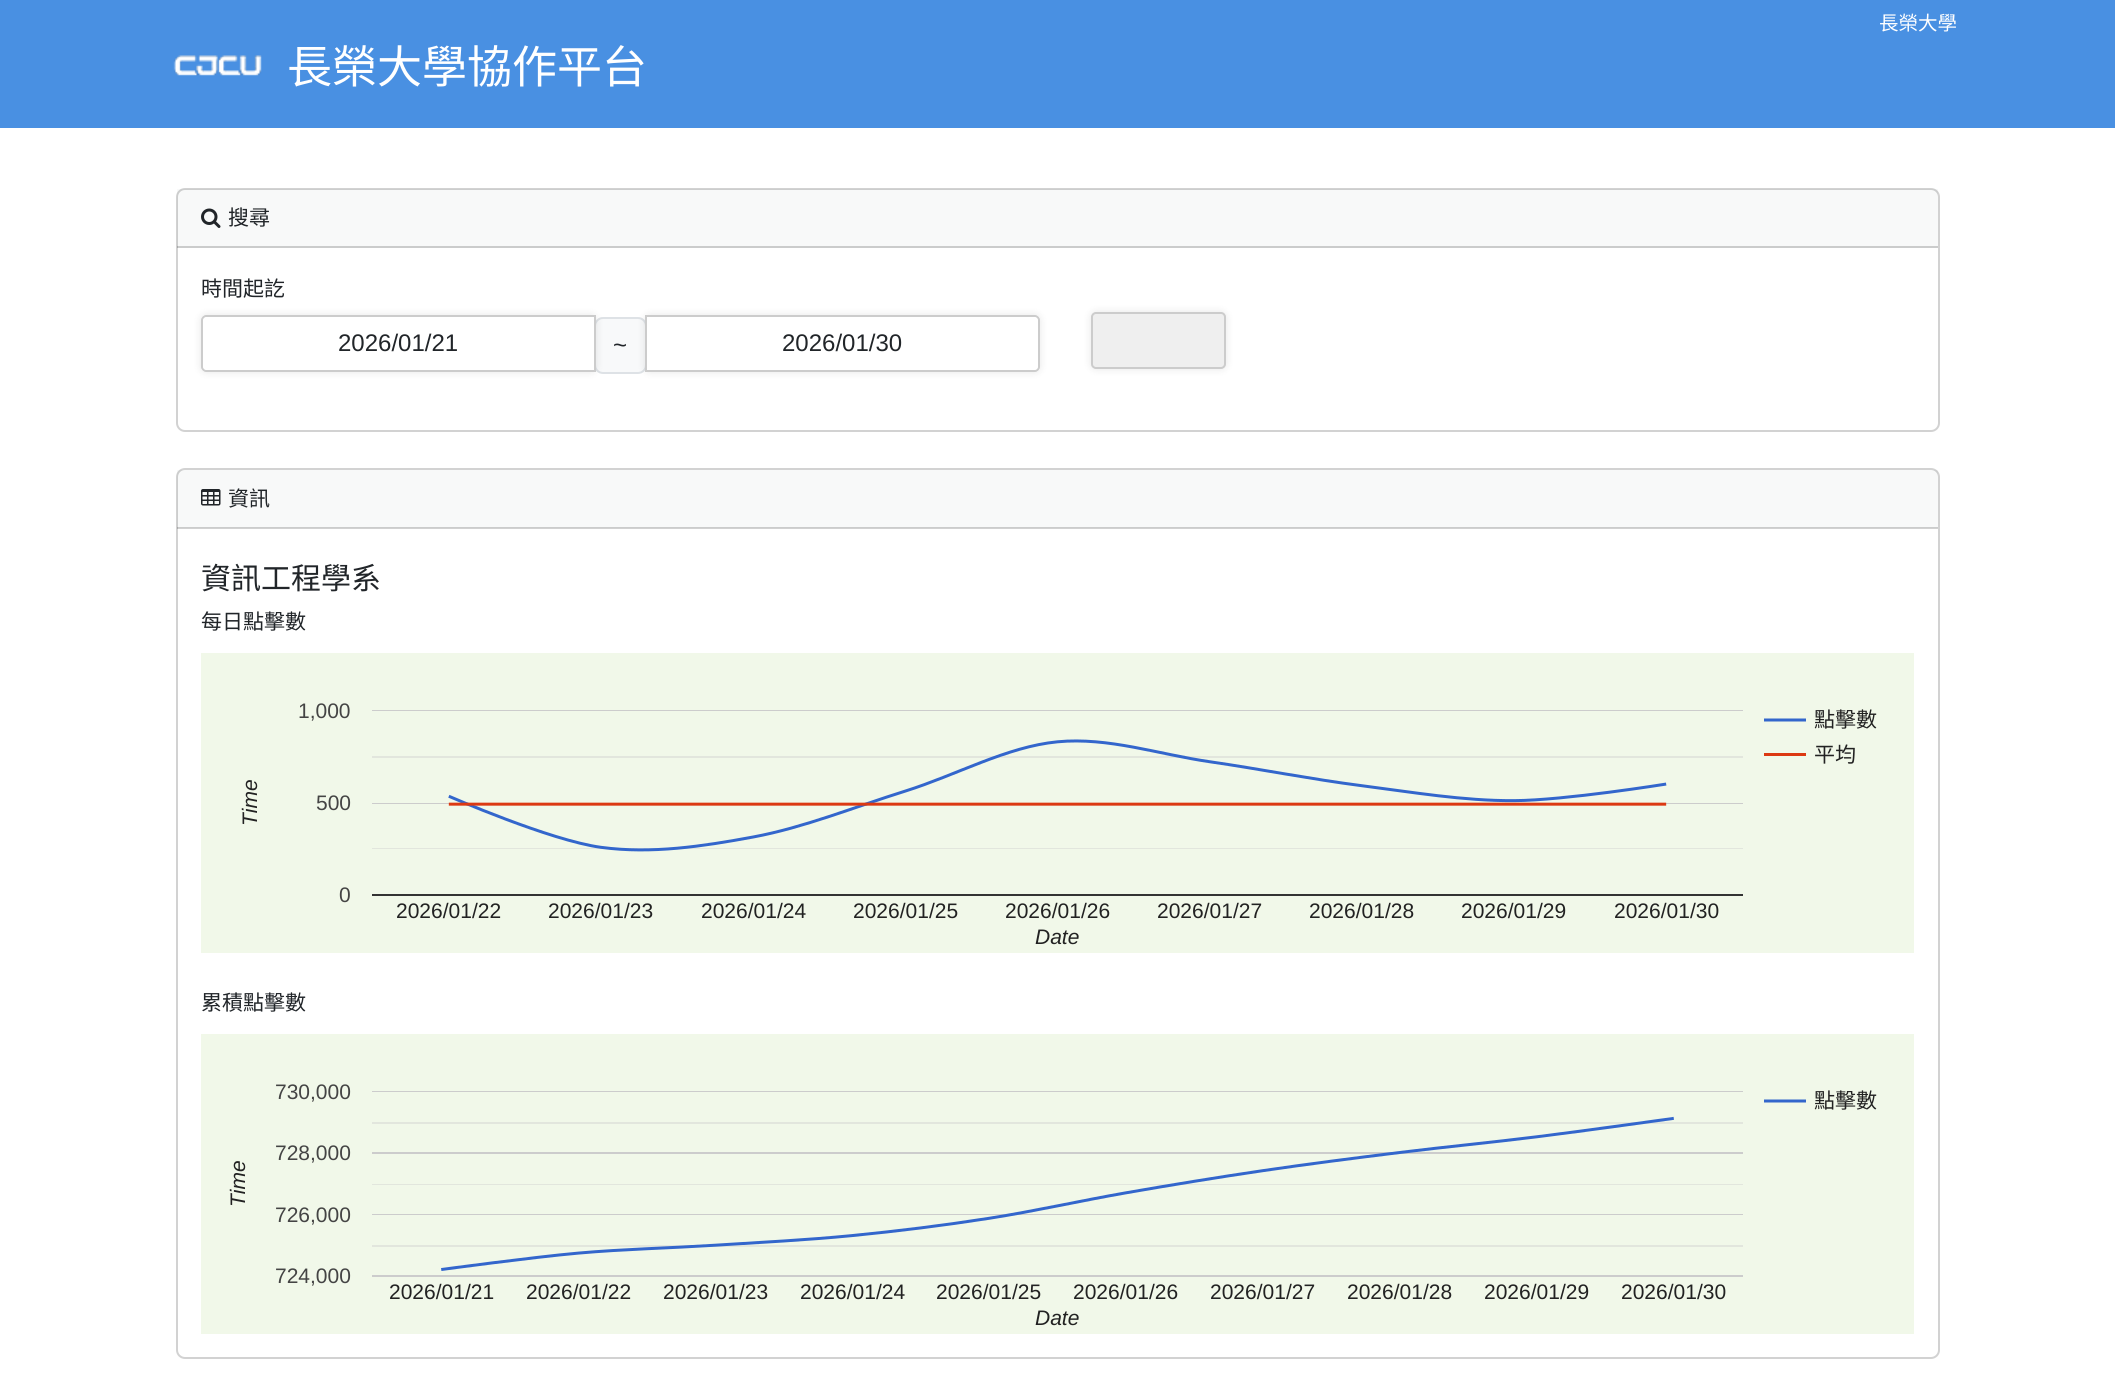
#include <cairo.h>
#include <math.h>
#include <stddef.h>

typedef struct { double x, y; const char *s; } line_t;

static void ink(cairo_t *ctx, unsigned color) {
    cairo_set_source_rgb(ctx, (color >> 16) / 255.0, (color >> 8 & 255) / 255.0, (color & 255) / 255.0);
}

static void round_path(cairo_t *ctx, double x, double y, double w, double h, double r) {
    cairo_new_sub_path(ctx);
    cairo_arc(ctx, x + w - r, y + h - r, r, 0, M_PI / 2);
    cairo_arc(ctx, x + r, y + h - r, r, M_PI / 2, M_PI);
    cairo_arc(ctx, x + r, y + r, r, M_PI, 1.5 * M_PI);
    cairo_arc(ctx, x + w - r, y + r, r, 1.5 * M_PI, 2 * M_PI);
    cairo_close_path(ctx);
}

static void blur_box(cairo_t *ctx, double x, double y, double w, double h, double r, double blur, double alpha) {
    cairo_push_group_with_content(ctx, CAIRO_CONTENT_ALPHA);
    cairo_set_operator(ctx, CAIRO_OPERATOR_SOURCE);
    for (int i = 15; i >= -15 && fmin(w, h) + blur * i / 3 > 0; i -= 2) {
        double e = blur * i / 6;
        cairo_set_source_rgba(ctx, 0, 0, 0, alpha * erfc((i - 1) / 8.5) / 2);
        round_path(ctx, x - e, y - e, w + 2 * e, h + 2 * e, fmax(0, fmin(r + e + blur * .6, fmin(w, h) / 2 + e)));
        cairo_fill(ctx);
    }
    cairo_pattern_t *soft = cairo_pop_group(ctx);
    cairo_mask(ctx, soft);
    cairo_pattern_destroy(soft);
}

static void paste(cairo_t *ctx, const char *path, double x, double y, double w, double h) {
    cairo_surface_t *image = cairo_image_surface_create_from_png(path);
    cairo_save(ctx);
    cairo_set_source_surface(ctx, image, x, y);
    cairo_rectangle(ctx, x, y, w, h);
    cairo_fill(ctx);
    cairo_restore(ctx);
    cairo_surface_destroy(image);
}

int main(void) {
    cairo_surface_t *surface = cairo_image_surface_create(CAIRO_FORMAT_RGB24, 2115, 1398);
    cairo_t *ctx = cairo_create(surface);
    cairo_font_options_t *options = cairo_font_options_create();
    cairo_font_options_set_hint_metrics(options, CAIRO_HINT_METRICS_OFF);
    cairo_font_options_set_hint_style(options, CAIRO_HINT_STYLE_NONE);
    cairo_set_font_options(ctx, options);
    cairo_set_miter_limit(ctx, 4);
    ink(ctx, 0xFFFFFF);
    cairo_paint(ctx);
    ink(ctx, 0x4990E2);
    cairo_rectangle(ctx, 0, 0, 2115, 128);
    cairo_fill(ctx);
    cairo_select_font_face(ctx, "Noto Sans CJK TC", CAIRO_FONT_SLANT_NORMAL, CAIRO_FONT_WEIGHT_NORMAL);
    cairo_set_font_size(ctx, 19.5);
    ink(ctx, 0xFFFFFF);
    cairo_move_to(ctx, 1879, 30);
    cairo_show_text(ctx, "長榮大學");
    paste(ctx, "media/1.png", 173, 55, 89, 21);
    cairo_set_font_size(ctx, 45);
    cairo_move_to(ctx, 287, 83);
    cairo_show_text(ctx, "長榮大學協作平台");
    round_path(ctx, 177, 189, 1762, 242, 8);
    ink(ctx, 0xD2D2D2);
    cairo_stroke(ctx);
    cairo_set_source_rgba(ctx, 0.129, 0.145, 0.161, 0.03);
    cairo_rectangle(ctx, 177, 189, 1761, 59);
    cairo_fill(ctx);
    cairo_set_source_rgba(ctx, 0, 0, 0, 0.18);
    cairo_rectangle(ctx, 177, 246, 1761, 2);
    cairo_fill(ctx);
    paste(ctx, "media/2.png", 201, 208, 20, 20);
    cairo_set_font_size(ctx, 21);
    ink(ctx, 0x212529);
    cairo_move_to(ctx, 228, 225);
    cairo_show_text(ctx, "搜尋");
    cairo_move_to(ctx, 201, 296);
    cairo_show_text(ctx, "時間起訖");
    ink(ctx, 0xF8F9FA);
    round_path(ctx, 595, 318, 51, 55, 8);
    cairo_fill_preserve(ctx);
    ink(ctx, 0xDEE2E6);
    cairo_stroke(ctx);
    cairo_save(ctx);
    cairo_set_fill_rule(ctx, CAIRO_FILL_RULE_EVEN_ODD);
    cairo_new_path(ctx);
    cairo_move_to(ctx, 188, 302);
    cairo_line_to(ctx, 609, 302);
    cairo_line_to(ctx, 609, 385);
    cairo_line_to(ctx, 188, 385);
    cairo_close_path(ctx);
    cairo_move_to(ctx, 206, 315);
    cairo_line_to(ctx, 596, 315);
    cairo_line_to(ctx, 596, 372);
    cairo_line_to(ctx, 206, 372);
    cairo_curve_to(ctx, 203, 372, 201, 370, 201, 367);
    cairo_line_to(ctx, 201, 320);
    cairo_curve_to(ctx, 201, 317, 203, 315, 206, 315);
    cairo_close_path(ctx);
    cairo_clip(ctx);
    ink(ctx, 0x000000);
    blur_box(ctx, 201, 315, 395, 57, 5, 4, 0.1);
    cairo_restore(ctx);
    cairo_new_path(ctx);
    cairo_move_to(ctx, 206, 316);
    cairo_line_to(ctx, 595, 316);
    cairo_line_to(ctx, 595, 371);
    cairo_line_to(ctx, 206, 371);
    cairo_curve_to(ctx, 204, 371, 202, 369, 202, 367);
    cairo_line_to(ctx, 202, 320);
    cairo_curve_to(ctx, 202, 318, 204, 316, 206, 316);
    cairo_close_path(ctx);
    ink(ctx, 0xCCCCCC);
    cairo_stroke(ctx);
    cairo_select_font_face(ctx, "Liberation Sans", CAIRO_FONT_SLANT_NORMAL, CAIRO_FONT_WEIGHT_NORMAL);
    cairo_set_font_size(ctx, 24);
    ink(ctx, 0x212529);
    cairo_move_to(ctx, 338, 351);
    cairo_show_text(ctx, "2026/01/21");
    cairo_move_to(ctx, 613, 353);
    cairo_show_text(ctx, "~");
    cairo_save(ctx);
    cairo_set_fill_rule(ctx, CAIRO_FILL_RULE_EVEN_ODD);
    cairo_new_path(ctx);
    cairo_move_to(ctx, 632, 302);
    cairo_line_to(ctx, 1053, 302);
    cairo_line_to(ctx, 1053, 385);
    cairo_line_to(ctx, 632, 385);
    cairo_close_path(ctx);
    cairo_move_to(ctx, 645, 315);
    cairo_line_to(ctx, 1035, 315);
    cairo_curve_to(ctx, 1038, 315, 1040, 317, 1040, 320);
    cairo_line_to(ctx, 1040, 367);
    cairo_curve_to(ctx, 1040, 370, 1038, 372, 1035, 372);
    cairo_line_to(ctx, 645, 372);
    cairo_close_path(ctx);
    cairo_clip(ctx);
    ink(ctx, 0x000000);
    blur_box(ctx, 645, 315, 395, 57, 5, 4, 0.1);
    cairo_restore(ctx);
    cairo_new_path(ctx);
    cairo_move_to(ctx, 646, 316);
    cairo_line_to(ctx, 1035, 316);
    cairo_curve_to(ctx, 1037, 316, 1039, 318, 1039, 320);
    cairo_line_to(ctx, 1039, 367);
    cairo_curve_to(ctx, 1039, 369, 1037, 371, 1035, 371);
    cairo_line_to(ctx, 646, 371);
    cairo_close_path(ctx);
    ink(ctx, 0xCCCCCC);
    cairo_stroke(ctx);
    ink(ctx, 0x212529);
    cairo_move_to(ctx, 782, 351);
    cairo_show_text(ctx, "2026/01/30");
    ink(ctx, 0x000000);
    blur_box(ctx, 1091, 312, 135, 57, 5, 4, 0.1);
    ink(ctx, 0xEFEFEF);
    round_path(ctx, 1092, 313, 133, 55, 4);
    cairo_fill_preserve(ctx);
    ink(ctx, 0xCCCCCC);
    cairo_stroke(ctx);
    round_path(ctx, 177, 469, 1762, 889, 8);
    ink(ctx, 0xD2D2D2);
    cairo_stroke(ctx);
    cairo_set_source_rgba(ctx, 0.129, 0.145, 0.161, 0.03);
    cairo_rectangle(ctx, 177, 470, 1761, 58);
    cairo_fill(ctx);
    cairo_set_source_rgba(ctx, 0, 0, 0, 0.18);
    cairo_rectangle(ctx, 177, 527, 1761, 2);
    cairo_fill(ctx);
    paste(ctx, "media/3.png", 201, 489, 20, 17);
    cairo_select_font_face(ctx, "Noto Sans CJK TC", CAIRO_FONT_SLANT_NORMAL, CAIRO_FONT_WEIGHT_NORMAL);
    cairo_set_font_size(ctx, 21);
    ink(ctx, 0x212529);
    cairo_move_to(ctx, 228, 506);
    cairo_show_text(ctx, "資訊");
    cairo_set_font_size(ctx, 30);
    cairo_move_to(ctx, 201, 589);
    cairo_show_text(ctx, "資訊工程學系");
    cairo_set_font_size(ctx, 21);
    cairo_move_to(ctx, 201, 629);
    cairo_show_text(ctx, "每日點擊數");
    paste(ctx, "media/4.png", 201, 653, 1713, 300);
    cairo_select_font_face(ctx, "Liberation Sans", CAIRO_FONT_SLANT_NORMAL, CAIRO_FONT_WEIGHT_NORMAL);
    ink(ctx, 0x444444);
    cairo_move_to(ctx, 298, 718);
    cairo_show_text(ctx, "1,000");
    cairo_select_font_face(ctx, "Noto Sans CJK TC", CAIRO_FONT_SLANT_NORMAL, CAIRO_FONT_WEIGHT_NORMAL);
    ink(ctx, 0x222222);
    cairo_move_to(ctx, 1814, 727);
    cairo_show_text(ctx, "點擊數");
    cairo_move_to(ctx, 1814, 762);
    cairo_show_text(ctx, "平均");
    cairo_select_font_face(ctx, "Liberation Sans", CAIRO_FONT_SLANT_ITALIC, CAIRO_FONT_WEIGHT_NORMAL);
    cairo_save(ctx);
    cairo_translate(ctx, 257, 826);
    cairo_rotate(ctx, -90 * M_PI / 180);
    cairo_move_to(ctx, 0, 0);
    cairo_show_text(ctx, "Time");
    cairo_restore(ctx);
    cairo_select_font_face(ctx, "Liberation Sans", CAIRO_FONT_SLANT_NORMAL, CAIRO_FONT_WEIGHT_NORMAL);
    ink(ctx, 0x444444);
    cairo_move_to(ctx, 316, 810);
    cairo_show_text(ctx, "500");
    cairo_move_to(ctx, 339, 902);
    cairo_show_text(ctx, "0");
    ink(ctx, 0x222222);
    {
        static const line_t items[] = {
            {396, 918, "2026/01/22"},
            {548, 918, "2026/01/23"},
            {701, 918, "2026/01/24"},
            {853, 918, "2026/01/25"},
            {1005, 918, "2026/01/26"},
            {1157, 918, "2026/01/27"},
            {1309, 918, "2026/01/28"},
            {1461, 918, "2026/01/29"},
            {1614, 918, "2026/01/30"},
        };
        for (size_t i = 0; i < sizeof items / sizeof *items; i++) {
            cairo_move_to(ctx, items[i].x, items[i].y);
            cairo_show_text(ctx, items[i].s);
        }
    }
    cairo_select_font_face(ctx, "Liberation Sans", CAIRO_FONT_SLANT_ITALIC, CAIRO_FONT_WEIGHT_NORMAL);
    cairo_move_to(ctx, 1035, 944);
    cairo_show_text(ctx, "Date");
    cairo_select_font_face(ctx, "Noto Sans CJK TC", CAIRO_FONT_SLANT_NORMAL, CAIRO_FONT_WEIGHT_NORMAL);
    ink(ctx, 0x212529);
    cairo_move_to(ctx, 201, 1010);
    cairo_show_text(ctx, "累積點擊數");
    paste(ctx, "media/5.png", 201, 1034, 1713, 300);
    cairo_select_font_face(ctx, "Liberation Sans", CAIRO_FONT_SLANT_NORMAL, CAIRO_FONT_WEIGHT_NORMAL);
    ink(ctx, 0x444444);
    cairo_move_to(ctx, 275, 1099);
    cairo_show_text(ctx, "730,000");
    cairo_select_font_face(ctx, "Noto Sans CJK TC", CAIRO_FONT_SLANT_NORMAL, CAIRO_FONT_WEIGHT_NORMAL);
    ink(ctx, 0x222222);
    cairo_move_to(ctx, 1814, 1108);
    cairo_show_text(ctx, "點擊數");
    cairo_select_font_face(ctx, "Liberation Sans", CAIRO_FONT_SLANT_NORMAL, CAIRO_FONT_WEIGHT_NORMAL);
    ink(ctx, 0x444444);
    cairo_move_to(ctx, 275, 1160);
    cairo_show_text(ctx, "728,000");
    cairo_select_font_face(ctx, "Liberation Sans", CAIRO_FONT_SLANT_ITALIC, CAIRO_FONT_WEIGHT_NORMAL);
    ink(ctx, 0x222222);
    cairo_save(ctx);
    cairo_translate(ctx, 245, 1207);
    cairo_rotate(ctx, -90 * M_PI / 180);
    cairo_move_to(ctx, 0, 0);
    cairo_show_text(ctx, "Time");
    cairo_restore(ctx);
    cairo_select_font_face(ctx, "Liberation Sans", CAIRO_FONT_SLANT_NORMAL, CAIRO_FONT_WEIGHT_NORMAL);
    ink(ctx, 0x444444);
    cairo_move_to(ctx, 275, 1222);
    cairo_show_text(ctx, "726,000");
    cairo_move_to(ctx, 275, 1283);
    cairo_show_text(ctx, "724,000");
    ink(ctx, 0x222222);
    {
        static const line_t items[] = {
            {389, 1299, "2026/01/21"},
            {526, 1299, "2026/01/22"},
            {663, 1299, "2026/01/23"},
            {800, 1299, "2026/01/24"},
            {936, 1299, "2026/01/25"},
            {1073, 1299, "2026/01/26"},
            {1210, 1299, "2026/01/27"},
            {1347, 1299, "2026/01/28"},
            {1484, 1299, "2026/01/29"},
            {1621, 1299, "2026/01/30"},
        };
        for (size_t i = 0; i < sizeof items / sizeof *items; i++) {
            cairo_move_to(ctx, items[i].x, items[i].y);
            cairo_show_text(ctx, items[i].s);
        }
    }
    cairo_select_font_face(ctx, "Liberation Sans", CAIRO_FONT_SLANT_ITALIC, CAIRO_FONT_WEIGHT_NORMAL);
    cairo_move_to(ctx, 1035, 1325);
    cairo_show_text(ctx, "Date");
    cairo_surface_write_to_png(surface, "image.png");
    cairo_font_options_destroy(options);
    cairo_destroy(ctx);
    cairo_surface_destroy(surface);
    return 0;
}
